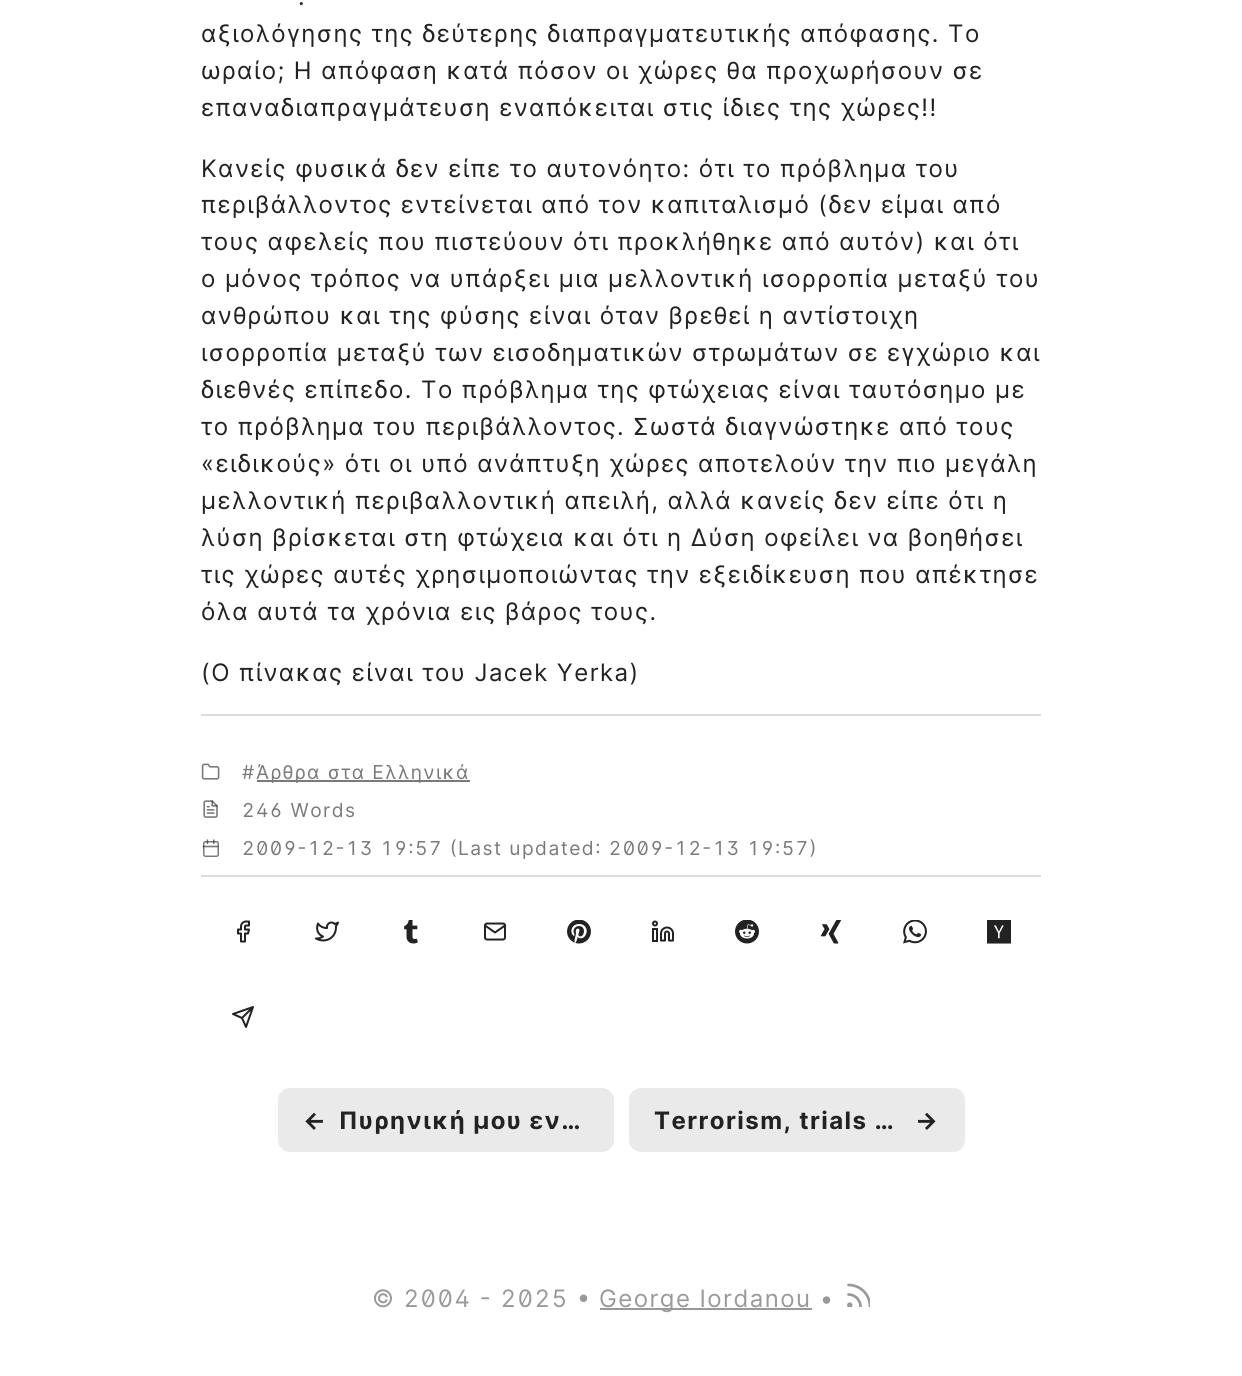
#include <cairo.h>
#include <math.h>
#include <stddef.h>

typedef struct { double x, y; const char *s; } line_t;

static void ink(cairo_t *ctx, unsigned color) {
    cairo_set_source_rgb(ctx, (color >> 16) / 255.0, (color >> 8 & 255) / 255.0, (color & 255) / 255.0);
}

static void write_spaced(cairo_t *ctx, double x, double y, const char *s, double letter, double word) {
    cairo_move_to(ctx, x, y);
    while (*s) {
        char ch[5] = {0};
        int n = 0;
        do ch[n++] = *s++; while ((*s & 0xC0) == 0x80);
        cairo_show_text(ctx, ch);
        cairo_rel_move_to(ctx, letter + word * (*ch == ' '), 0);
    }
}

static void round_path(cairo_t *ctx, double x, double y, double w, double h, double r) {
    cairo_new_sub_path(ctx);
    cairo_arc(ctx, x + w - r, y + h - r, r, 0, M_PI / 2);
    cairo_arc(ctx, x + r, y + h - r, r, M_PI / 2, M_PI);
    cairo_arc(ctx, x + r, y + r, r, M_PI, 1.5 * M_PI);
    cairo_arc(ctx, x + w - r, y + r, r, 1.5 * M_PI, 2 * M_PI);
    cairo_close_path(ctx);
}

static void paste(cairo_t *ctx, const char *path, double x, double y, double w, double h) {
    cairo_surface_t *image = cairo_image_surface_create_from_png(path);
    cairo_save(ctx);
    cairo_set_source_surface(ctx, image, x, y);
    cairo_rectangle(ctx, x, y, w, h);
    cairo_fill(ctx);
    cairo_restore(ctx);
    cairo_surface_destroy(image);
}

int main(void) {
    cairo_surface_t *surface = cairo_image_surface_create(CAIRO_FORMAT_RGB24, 1242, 1376);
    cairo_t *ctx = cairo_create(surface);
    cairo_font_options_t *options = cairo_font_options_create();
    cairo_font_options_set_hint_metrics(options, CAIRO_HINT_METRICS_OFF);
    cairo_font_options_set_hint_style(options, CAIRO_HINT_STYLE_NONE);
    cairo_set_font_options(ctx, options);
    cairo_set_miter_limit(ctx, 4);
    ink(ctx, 0xFFFFFF);
    cairo_paint(ctx);
    cairo_select_font_face(ctx, "Inter", CAIRO_FONT_SLANT_NORMAL, CAIRO_FONT_WEIGHT_NORMAL);
    cairo_set_font_size(ctx, 24);
    ink(ctx, 0x222222);
    {
        static const line_t items[] = {
            {298, 5, "."},
            {201, 42, "αξιολόγησης της δεύτερης διαπραγματευτικής απόφασης. Το"},
            {201, 79, "ωραίο; Η απόφαση κατά πόσον οι χώρες θα προχωρήσουν σε"},
            {201, 116, "επαναδιαπραγμάτευση εναπόκειται στις ίδιες της χώρες!!"},
            {201, 177, "Κανείς φυσικά δεν είπε το αυτονόητο: ότι το πρόβλημα του"},
            {201, 213, "περιβάλλοντος εντείνεται από τον καπιταλισμό (δεν είμαι από"},
            {201, 250, "τους αφελείς που πιστεύουν ότι προκλήθηκε από αυτόν) και ότι"},
            {201, 287, "ο μόνος τρόπος να υπάρξει μια μελλοντική ισορροπία μεταξύ του"},
            {201, 324, "ανθρώπου και της φύσης είναι όταν βρεθεί η αντίστοιχη"},
            {201, 361, "ισορροπία μεταξύ των εισοδηματικών στρωμάτων σε εγχώριο και"},
            {201, 398, "διεθνές επίπεδο. Το πρόβλημα της φτώχειας είναι ταυτόσημο με"},
            {201, 435, "το πρόβλημα του περιβάλλοντος. Σωστά διαγνώστηκε από τους"},
            {201, 472, "«ειδικούς» ότι οι υπό ανάπτυξη χώρες αποτελούν την πιο μεγάλη"},
            {201, 509, "μελλοντική περιβαλλοντική απειλή, αλλά κανείς δεν είπε ότι η"},
            {201, 546, "λύση βρίσκεται στη φτώχεια και ότι η Δύση οφείλει να βοηθήσει"},
            {201, 583, "τις χώρες αυτές χρησιμοποιώντας την εξειδίκευση που απέκτησε"},
            {201, 620, "όλα αυτά τα χρόνια εις βάρος τους."},
            {201, 681, "(Ο πίνακας είναι του Jacek Yerka)"},
        };
        for (size_t i = 0; i < sizeof items / sizeof *items; i++) {
            write_spaced(ctx, items[i].x, items[i].y, items[i].s, 1.45, 0);
        }
    }
    ink(ctx, 0xDCDCDC);
    cairo_rectangle(ctx, 201, 714, 840, 2);
    cairo_fill(ctx);
    paste(ctx, "media/1.png", 201, 763, 19, 17);
    cairo_set_font_size(ctx, 19.2);
    ink(ctx, 0x7A7A7A);
    write_spaced(ctx, 242, 779, "#", 1.45, 0);
    cairo_rectangle(ctx, 257, 780, 213, 2);
    cairo_fill(ctx);
    write_spaced(ctx, 256, 779, "Άρθρα στα Ελληνικά", 1.45, 0);
    paste(ctx, "media/2.png", 203, 800, 15, 18);
    cairo_select_font_face(ctx, "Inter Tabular", CAIRO_FONT_SLANT_NORMAL, CAIRO_FONT_WEIGHT_NORMAL);
    write_spaced(ctx, 242, 817, "246 Words", 1.45, 0);
    paste(ctx, "media/3.png", 202, 839, 17, 18);
    write_spaced(ctx, 242, 855, "2009-12-13 19:57 (Last updated: 2009-12-13 19:57)", 1.45, 0);
    ink(ctx, 0xDCDCDC);
    cairo_rectangle(ctx, 201, 875, 840, 2);
    cairo_fill(ctx);
    paste(ctx, "media/4.png", 237, 920, 13, 23);
    paste(ctx, "media/5.png", 315, 921, 24, 21);
    paste(ctx, "media/6.png", 404, 920, 14, 24);
    paste(ctx, "media/7.png", 484, 922, 22, 19);
    paste(ctx, "media/8.png", 567, 920, 24, 24);
    paste(ctx, "media/9.png", 652, 920, 22, 22);
    paste(ctx, "media/10.png", 735, 920, 24, 24);
    paste(ctx, "media/11.png", 820, 920, 22, 24);
    paste(ctx, "media/12.png", 903, 920, 24, 24);
    paste(ctx, "media/13.png", 987, 920, 24, 24);
    cairo_new_path(ctx);
    cairo_move_to(ctx, 253, 1007);
    cairo_line_to(ctx, 242, 1018);
    cairo_move_to(ctx, 253, 1007);
    cairo_line_to(ctx, 246, 1027);
    cairo_line_to(ctx, 242, 1018);
    cairo_line_to(ctx, 233, 1014);
    cairo_close_path(ctx);
    ink(ctx, 0x222222);
    cairo_set_line_cap(ctx, CAIRO_LINE_CAP_ROUND);
    cairo_set_line_join(ctx, CAIRO_LINE_JOIN_ROUND);
    cairo_stroke(ctx);
    ink(ctx, 0xEAEAEA);
    round_path(ctx, 278, 1088, 336, 64, 12);
    cairo_fill(ctx);
    cairo_select_font_face(ctx, "Inter", CAIRO_FONT_SLANT_NORMAL, CAIRO_FONT_WEIGHT_BOLD);
    cairo_set_font_size(ctx, 24);
    ink(ctx, 0x222222);
    write_spaced(ctx, 303, 1129, "←", 1.45, 0);
    write_spaced(ctx, 339, 1129, "Πυρηνική μου εν…", 1.45, 0);
    ink(ctx, 0xEAEAEA);
    round_path(ctx, 629, 1088, 336, 64, 12);
    cairo_fill(ctx);
    ink(ctx, 0x222222);
    write_spaced(ctx, 654, 1129, "Terrorism, trials …", 1.45, 0);
    write_spaced(ctx, 915, 1129, "→", 1.45, 0);
    cairo_select_font_face(ctx, "Inter Tabular", CAIRO_FONT_SLANT_NORMAL, CAIRO_FONT_WEIGHT_NORMAL);
    ink(ctx, 0x999999);
    write_spaced(ctx, 372, 1307, "© 2004 - 2025 •", 1.45, 0);
    cairo_rectangle(ctx, 600, 1308, 212, 2);
    cairo_fill(ctx);
    cairo_select_font_face(ctx, "Inter", CAIRO_FONT_SLANT_NORMAL, CAIRO_FONT_WEIGHT_NORMAL);
    write_spaced(ctx, 599, 1307, "George Iordanou •", 1.45, 0);
    cairo_save(ctx);
    cairo_rectangle(ctx, 843, 1280, 27, 27);
    cairo_clip(ctx);
    cairo_new_path(ctx);
    cairo_move_to(ctx, 848.5, 1294.5);
    cairo_curve_to(ctx, 855, 1294.5, 860.5, 1300, 860.5, 1306.5);
    cairo_move_to(ctx, 848.5, 1285);
    cairo_curve_to(ctx, 860.5, 1285, 870, 1294.5, 870, 1306.5);
    cairo_set_line_width(ctx, 2.7);
    cairo_stroke(ctx);
    cairo_arc(ctx, 849.8, 1305.2, 1.4, 0, 2 * M_PI);
    cairo_set_line_cap(ctx, CAIRO_LINE_CAP_BUTT);
    cairo_set_line_join(ctx, CAIRO_LINE_JOIN_MITER);
    cairo_stroke(ctx);
    cairo_restore(ctx);
    cairo_surface_write_to_png(surface, "image.png");
    cairo_font_options_destroy(options);
    cairo_destroy(ctx);
    cairo_surface_destroy(surface);
    return 0;
}
